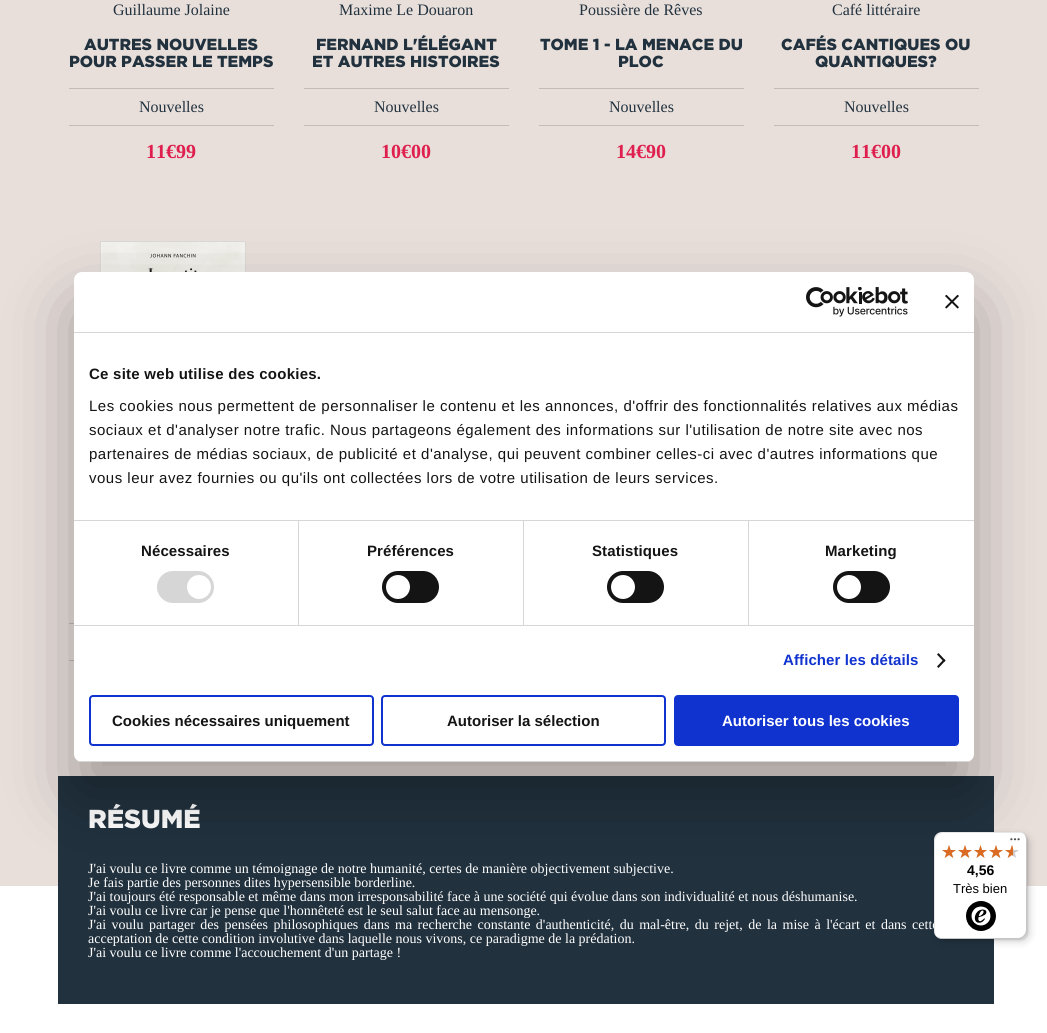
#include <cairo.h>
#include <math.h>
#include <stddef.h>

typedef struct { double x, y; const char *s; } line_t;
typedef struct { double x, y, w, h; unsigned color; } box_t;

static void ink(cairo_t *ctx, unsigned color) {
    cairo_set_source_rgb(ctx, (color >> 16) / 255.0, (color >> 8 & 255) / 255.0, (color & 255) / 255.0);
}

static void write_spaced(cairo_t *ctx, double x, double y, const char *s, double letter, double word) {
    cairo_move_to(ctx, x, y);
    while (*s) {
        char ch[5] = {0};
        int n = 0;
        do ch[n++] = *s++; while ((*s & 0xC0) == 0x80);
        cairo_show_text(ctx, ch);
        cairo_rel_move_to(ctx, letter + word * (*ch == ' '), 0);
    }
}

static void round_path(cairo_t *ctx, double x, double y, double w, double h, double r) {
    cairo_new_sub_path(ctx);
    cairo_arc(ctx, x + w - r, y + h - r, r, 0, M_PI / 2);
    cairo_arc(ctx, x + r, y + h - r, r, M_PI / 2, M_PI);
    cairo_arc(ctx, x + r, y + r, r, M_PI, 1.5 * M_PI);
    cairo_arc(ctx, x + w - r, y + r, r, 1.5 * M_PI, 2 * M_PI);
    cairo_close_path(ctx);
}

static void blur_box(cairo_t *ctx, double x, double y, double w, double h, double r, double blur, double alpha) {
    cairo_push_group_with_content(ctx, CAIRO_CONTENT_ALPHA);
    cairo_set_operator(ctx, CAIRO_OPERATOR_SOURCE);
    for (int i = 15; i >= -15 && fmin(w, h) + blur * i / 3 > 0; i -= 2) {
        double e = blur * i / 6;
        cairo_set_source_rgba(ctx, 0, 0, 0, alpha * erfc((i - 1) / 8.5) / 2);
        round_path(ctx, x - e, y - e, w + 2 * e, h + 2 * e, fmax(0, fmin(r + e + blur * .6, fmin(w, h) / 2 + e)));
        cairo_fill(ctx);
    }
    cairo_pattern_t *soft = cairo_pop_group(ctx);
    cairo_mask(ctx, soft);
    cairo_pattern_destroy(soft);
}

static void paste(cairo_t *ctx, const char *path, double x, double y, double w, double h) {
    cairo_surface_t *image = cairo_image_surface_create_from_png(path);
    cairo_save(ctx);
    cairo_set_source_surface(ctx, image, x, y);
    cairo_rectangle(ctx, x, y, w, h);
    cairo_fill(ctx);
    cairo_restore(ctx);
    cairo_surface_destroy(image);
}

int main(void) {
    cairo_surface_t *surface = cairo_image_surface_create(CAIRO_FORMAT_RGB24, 1047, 1033);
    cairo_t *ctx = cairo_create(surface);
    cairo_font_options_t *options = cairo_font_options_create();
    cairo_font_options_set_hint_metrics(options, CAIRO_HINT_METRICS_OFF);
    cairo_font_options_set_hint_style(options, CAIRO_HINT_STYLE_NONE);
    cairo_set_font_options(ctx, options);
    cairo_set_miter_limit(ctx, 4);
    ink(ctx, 0xFFFFFF);
    cairo_paint(ctx);
    ink(ctx, 0xE8DFDB);
    cairo_rectangle(ctx, 0, 0, 1047, 886);
    cairo_fill(ctx);
    cairo_select_font_face(ctx, "Liberation Serif", CAIRO_FONT_SLANT_NORMAL, CAIRO_FONT_WEIGHT_NORMAL);
    cairo_set_font_size(ctx, 16);
    ink(ctx, 0x21313E);
    cairo_move_to(ctx, 113, 15);
    cairo_show_text(ctx, "Guillaume Jolaine");
    cairo_select_font_face(ctx, "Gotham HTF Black", CAIRO_FONT_SLANT_NORMAL, CAIRO_FONT_WEIGHT_NORMAL);
    cairo_move_to(ctx, 84, 50);
    cairo_show_text(ctx, "AUTRES NOUVELLES");
    cairo_move_to(ctx, 69, 67);
    cairo_show_text(ctx, "POUR PASSER LE TEMPS");
    ink(ctx, 0xC5BAB4);
    cairo_rectangle(ctx, 69, 88, 205, 1);
    cairo_fill(ctx);
    cairo_rectangle(ctx, 69, 125, 205, 1);
    cairo_fill(ctx);
    cairo_select_font_face(ctx, "Liberation Serif", CAIRO_FONT_SLANT_NORMAL, CAIRO_FONT_WEIGHT_NORMAL);
    ink(ctx, 0x21313E);
    cairo_move_to(ctx, 139, 112);
    cairo_show_text(ctx, "Nouvelles");
    cairo_select_font_face(ctx, "Liberation Serif", CAIRO_FONT_SLANT_NORMAL, CAIRO_FONT_WEIGHT_BOLD);
    cairo_set_font_size(ctx, 20);
    ink(ctx, 0xDF1F4D);
    cairo_move_to(ctx, 146, 158);
    cairo_show_text(ctx, "11€99");
    cairo_select_font_face(ctx, "Liberation Serif", CAIRO_FONT_SLANT_NORMAL, CAIRO_FONT_WEIGHT_NORMAL);
    cairo_set_font_size(ctx, 16);
    ink(ctx, 0x21313E);
    cairo_move_to(ctx, 339, 15);
    cairo_show_text(ctx, "Maxime Le Douaron");
    cairo_select_font_face(ctx, "Gotham HTF Black", CAIRO_FONT_SLANT_NORMAL, CAIRO_FONT_WEIGHT_NORMAL);
    cairo_move_to(ctx, 316, 50);
    cairo_show_text(ctx, "FERNAND L'ÉLÉGANT");
    cairo_move_to(ctx, 312, 67);
    cairo_show_text(ctx, "ET AUTRES HISTOIRES");
    ink(ctx, 0xC5BAB4);
    cairo_rectangle(ctx, 304, 88, 205, 1);
    cairo_fill(ctx);
    cairo_rectangle(ctx, 304, 125, 205, 1);
    cairo_fill(ctx);
    cairo_select_font_face(ctx, "Liberation Serif", CAIRO_FONT_SLANT_NORMAL, CAIRO_FONT_WEIGHT_NORMAL);
    ink(ctx, 0x21313E);
    cairo_move_to(ctx, 374, 112);
    cairo_show_text(ctx, "Nouvelles");
    cairo_select_font_face(ctx, "Liberation Serif", CAIRO_FONT_SLANT_NORMAL, CAIRO_FONT_WEIGHT_BOLD);
    cairo_set_font_size(ctx, 20);
    ink(ctx, 0xDF1F4D);
    cairo_move_to(ctx, 381, 158);
    cairo_show_text(ctx, "10€00");
    cairo_select_font_face(ctx, "Liberation Serif", CAIRO_FONT_SLANT_NORMAL, CAIRO_FONT_WEIGHT_NORMAL);
    cairo_set_font_size(ctx, 16);
    ink(ctx, 0x21313E);
    cairo_move_to(ctx, 579, 15);
    cairo_show_text(ctx, "Poussière de Rêves");
    cairo_select_font_face(ctx, "Gotham HTF Black", CAIRO_FONT_SLANT_NORMAL, CAIRO_FONT_WEIGHT_NORMAL);
    cairo_move_to(ctx, 540, 50);
    cairo_show_text(ctx, "TOME 1 - LA MENACE DU");
    cairo_move_to(ctx, 618, 67);
    cairo_show_text(ctx, "PLOC");
    ink(ctx, 0xC5BAB4);
    cairo_rectangle(ctx, 539, 88, 205, 1);
    cairo_fill(ctx);
    cairo_rectangle(ctx, 539, 125, 205, 1);
    cairo_fill(ctx);
    cairo_select_font_face(ctx, "Liberation Serif", CAIRO_FONT_SLANT_NORMAL, CAIRO_FONT_WEIGHT_NORMAL);
    ink(ctx, 0x21313E);
    cairo_move_to(ctx, 609, 112);
    cairo_show_text(ctx, "Nouvelles");
    cairo_select_font_face(ctx, "Liberation Serif", CAIRO_FONT_SLANT_NORMAL, CAIRO_FONT_WEIGHT_BOLD);
    cairo_set_font_size(ctx, 20);
    ink(ctx, 0xDF1F4D);
    cairo_move_to(ctx, 616, 158);
    cairo_show_text(ctx, "14€90");
    cairo_select_font_face(ctx, "Liberation Serif", CAIRO_FONT_SLANT_NORMAL, CAIRO_FONT_WEIGHT_NORMAL);
    cairo_set_font_size(ctx, 16);
    ink(ctx, 0x21313E);
    cairo_move_to(ctx, 832, 15);
    cairo_show_text(ctx, "Café littéraire");
    cairo_select_font_face(ctx, "Gotham HTF Black", CAIRO_FONT_SLANT_NORMAL, CAIRO_FONT_WEIGHT_NORMAL);
    cairo_move_to(ctx, 781, 50);
    cairo_show_text(ctx, "CAFÉS CANTIQUES OU");
    cairo_move_to(ctx, 815, 67);
    cairo_show_text(ctx, "QUANTIQUES?");
    ink(ctx, 0xC5BAB4);
    cairo_rectangle(ctx, 774, 88, 205, 1);
    cairo_fill(ctx);
    cairo_rectangle(ctx, 774, 125, 205, 1);
    cairo_fill(ctx);
    cairo_select_font_face(ctx, "Liberation Serif", CAIRO_FONT_SLANT_NORMAL, CAIRO_FONT_WEIGHT_NORMAL);
    ink(ctx, 0x21313E);
    cairo_move_to(ctx, 844, 112);
    cairo_show_text(ctx, "Nouvelles");
    cairo_select_font_face(ctx, "Liberation Serif", CAIRO_FONT_SLANT_NORMAL, CAIRO_FONT_WEIGHT_BOLD);
    cairo_set_font_size(ctx, 20);
    ink(ctx, 0xDF1F4D);
    cairo_move_to(ctx, 851, 158);
    cairo_show_text(ctx, "11€00");
    cairo_rectangle(ctx, 100.5, 241.5, 145, 224);
    ink(ctx, 0xDBD9D8);
    cairo_set_line_width(ctx, 1);
    cairo_stroke(ctx);
    paste(ctx, "media/1.png", 101, 242, 144, 30);
    {
        static const box_t items[] = {
            {69, 623, 5, 1, 0xC5BAB4},
            {69, 660, 5, 1, 0xC5BAB4},
            {58, 776, 936, 228, 0x21313E},
        };
        for (size_t i = 0; i < sizeof items / sizeof *items; i++) {
            ink(ctx, items[i].color);
            cairo_rectangle(ctx, items[i].x, items[i].y, items[i].w, items[i].h);
            cairo_fill(ctx);
        }
    }
    cairo_select_font_face(ctx, "Gotham HTF Black", CAIRO_FONT_SLANT_NORMAL, CAIRO_FONT_WEIGHT_NORMAL);
    cairo_set_font_size(ctx, 26);
    ink(ctx, 0xFFFFFF);
    cairo_move_to(ctx, 88, 828);
    cairo_show_text(ctx, "RÉSUMÉ");
    cairo_select_font_face(ctx, "Liberation Serif", CAIRO_FONT_SLANT_NORMAL, CAIRO_FONT_WEIGHT_NORMAL);
    cairo_set_font_size(ctx, 14);
    {
        static const line_t items[] = {
            {88, 873, "J'ai voulu ce livre comme un témoignage de notre humanité, certes de manière objectivement subjective."},
            {88, 887, "Je fais partie des personnes dites hypersensible borderline."},
            {88, 901, "J'ai toujours été responsable et même dans mon irresponsabilité face à une société qui évolue dans son individualité et nous déshumanise."},
            {88, 915, "J'ai voulu ce livre car je pense que l'honnêteté est le seul salut face au mensonge."},
        };
        for (size_t i = 0; i < sizeof items / sizeof *items; i++) {
            cairo_move_to(ctx, items[i].x, items[i].y);
            cairo_show_text(ctx, items[i].s);
        }
    }
    write_spaced(ctx, 88, 929, "J'ai voulu partager des pensées philosophiques dans ma recherche constante d'authenticité, du mal-être, du rejet, de la mise à l'écart et dans cette", 0, 2);
    cairo_move_to(ctx, 88, 943);
    cairo_show_text(ctx, "acceptation de cette condition involutive dans laquelle nous vivons, ce paradigme de la prédation.");
    cairo_move_to(ctx, 88, 957);
    cairo_show_text(ctx, "J'ai voulu ce livre comme l'accouchement d'un partage !");
    ink(ctx, 0x000000);
    blur_box(ctx, 74, 304, 900, 490, 8, 34, 0.3);
    ink(ctx, 0xFFFFFF);
    round_path(ctx, 74, 272, 900, 490, 8);
    cairo_fill(ctx);
    ink(ctx, 0xD6D6D6);
    cairo_rectangle(ctx, 74, 332, 900, 1);
    cairo_fill(ctx);
    paste(ctx, "media/2.png", 806, 287, 102, 30);
    paste(ctx, "media/3.png", 945, 295, 14, 14);
    cairo_rectangle(ctx, 74, 520, 900, 1);
    cairo_fill(ctx);
    cairo_select_font_face(ctx, "Liberation Sans", CAIRO_FONT_SLANT_NORMAL, CAIRO_FONT_WEIGHT_BOLD);
    cairo_set_font_size(ctx, 15);
    ink(ctx, 0x141414);
    write_spaced(ctx, 89, 379, "Ce site web utilise des cookies.", 0.25, 0);
    cairo_select_font_face(ctx, "Liberation Sans", CAIRO_FONT_SLANT_NORMAL, CAIRO_FONT_WEIGHT_NORMAL);
    {
        static const line_t items[] = {
            {89, 411, "Les cookies nous permettent de personnaliser le contenu et les annonces, d'offrir des fonctionnalités relatives aux médias"},
            {89, 435, "sociaux et d'analyser notre trafic. Nous partageons également des informations sur l'utilisation de notre site avec nos"},
            {89, 459, "partenaires de médias sociaux, de publicité et d'analyse, qui peuvent combiner celles-ci avec d'autres informations que"},
            {89, 483, "vous leur avez fournies ou qu'ils ont collectées lors de votre utilisation de leurs services."},
        };
        for (size_t i = 0; i < sizeof items / sizeof *items; i++) {
            write_spaced(ctx, items[i].x, items[i].y, items[i].s, 0.5, 0);
        }
    }
    ink(ctx, 0xD6D6D6);
    cairo_rectangle(ctx, 74, 625, 900, 1);
    cairo_fill(ctx);
    cairo_rectangle(ctx, 298, 521, 1, 104);
    cairo_fill(ctx);
    cairo_select_font_face(ctx, "Liberation Sans", CAIRO_FONT_SLANT_NORMAL, CAIRO_FONT_WEIGHT_BOLD);
    ink(ctx, 0x141414);
    write_spaced(ctx, 141, 556, "Nécessaires", 0.1, 0);
    ink(ctx, 0xD6D6D6);
    round_path(ctx, 157, 571, 57, 32, 16);
    cairo_fill(ctx);
    ink(ctx, 0xFFFFFF);
    cairo_arc(ctx, 199, 587, 12, 0, 2 * M_PI);
    cairo_fill(ctx);
    ink(ctx, 0xD6D6D6);
    cairo_rectangle(ctx, 523, 521, 1, 104);
    cairo_fill(ctx);
    ink(ctx, 0x141414);
    write_spaced(ctx, 367, 556, "Préférences", 0.1, 0);
    round_path(ctx, 382, 571, 57, 32, 16);
    cairo_fill(ctx);
    ink(ctx, 0xFFFFFF);
    cairo_arc(ctx, 398, 587, 12, 0, 2 * M_PI);
    cairo_fill(ctx);
    ink(ctx, 0xD6D6D6);
    cairo_rectangle(ctx, 748, 521, 1, 104);
    cairo_fill(ctx);
    ink(ctx, 0x141414);
    write_spaced(ctx, 592, 556, "Statistiques", 0.1, 0);
    round_path(ctx, 607, 571, 57, 32, 16);
    cairo_fill(ctx);
    ink(ctx, 0xFFFFFF);
    cairo_arc(ctx, 623, 587, 12, 0, 2 * M_PI);
    cairo_fill(ctx);
    ink(ctx, 0x141414);
    write_spaced(ctx, 825, 556, "Marketing", 0.1, 0);
    round_path(ctx, 833, 571, 57, 32, 16);
    cairo_fill(ctx);
    ink(ctx, 0xFFFFFF);
    cairo_arc(ctx, 849, 587, 12, 0, 2 * M_PI);
    cairo_fill(ctx);
    ink(ctx, 0x1032CF);
    write_spaced(ctx, 783, 665, "Afficher les détails", 0.1, 0);
    ink(ctx, 0x141414);
    cairo_new_path(ctx);
    cairo_move_to(ctx, 938.5, 653);
    cairo_line_to(ctx, 945.5, 660.5);
    cairo_line_to(ctx, 944, 662);
    cairo_line_to(ctx, 937, 654.5);
    cairo_close_path(ctx);
    cairo_fill(ctx);
    cairo_new_path(ctx);
    cairo_move_to(ctx, 944, 659);
    cairo_line_to(ctx, 945.5, 660.5);
    cairo_line_to(ctx, 938.5, 668);
    cairo_line_to(ctx, 937, 666.5);
    cairo_close_path(ctx);
    cairo_fill(ctx);
    cairo_save(ctx);
    round_path(ctx, 74, 272, 900, 490, 8);
    cairo_clip(ctx);
    ink(ctx, 0xD6D6D6);
    cairo_rectangle(ctx, 74, 761, 900, 1);
    cairo_fill(ctx);
    cairo_restore(ctx);
    round_path(ctx, 90, 696, 283, 49, 3);
    ink(ctx, 0x1032CF);
    cairo_set_line_width(ctx, 2);
    cairo_stroke(ctx);
    ink(ctx, 0x141414);
    cairo_move_to(ctx, 112, 726);
    cairo_show_text(ctx, "Cookies nécessaires uniquement");
    round_path(ctx, 382, 696, 283, 49, 3);
    ink(ctx, 0x1032CF);
    cairo_stroke(ctx);
    ink(ctx, 0x141414);
    cairo_move_to(ctx, 447, 726);
    cairo_show_text(ctx, "Autoriser la sélection");
    ink(ctx, 0x1032CF);
    round_path(ctx, 675, 696, 283, 49, 3);
    cairo_fill_preserve(ctx);
    cairo_stroke(ctx);
    ink(ctx, 0xFFFFFF);
    cairo_move_to(ctx, 722, 726);
    cairo_show_text(ctx, "Autoriser tous les cookies");
    ink(ctx, 0x000000);
    blur_box(ctx, 937, 835, 93, 107, 8, 4, 0.15);
    blur_box(ctx, 935, 833, 93, 107, 8, 1, 0.15);
    ink(ctx, 0xFFFFFF);
    round_path(ctx, 934, 832, 93, 107, 8);
    cairo_fill(ctx);
    cairo_set_source_rgba(ctx, 0, 0, 0, 0.1);
    cairo_new_path(ctx);
    cairo_move_to(ctx, 943, 833);
    cairo_line_to(ctx, 1020, 833);
    cairo_curve_to(ctx, 1022, 833, 1024, 834, 1026, 836);
    cairo_curve_to(ctx, 1024, 834, 1022, 832, 1019, 832);
    cairo_line_to(ctx, 942, 832);
    cairo_curve_to(ctx, 938, 832, 934, 836, 934, 840);
    cairo_line_to(ctx, 934, 931);
    cairo_curve_to(ctx, 934, 934, 936, 936, 938, 938);
    cairo_curve_to(ctx, 936, 936, 935, 934, 935, 932);
    cairo_line_to(ctx, 935, 841);
    cairo_curve_to(ctx, 935, 837, 939, 833, 943, 833);
    cairo_close_path(ctx);
    cairo_fill(ctx);
    cairo_set_source_rgba(ctx, 0, 0, 0, 0.2);
    cairo_new_path(ctx);
    cairo_move_to(ctx, 935, 935);
    cairo_curve_to(ctx, 937, 937, 939, 939, 942, 939);
    cairo_line_to(ctx, 1019, 939);
    cairo_curve_to(ctx, 1023, 939, 1027, 935, 1027, 931);
    cairo_line_to(ctx, 1027, 840);
    cairo_curve_to(ctx, 1027, 837, 1025, 835, 1023, 833);
    cairo_curve_to(ctx, 1025, 835, 1026, 837, 1026, 839);
    cairo_line_to(ctx, 1026, 930);
    cairo_curve_to(ctx, 1026, 934, 1022, 938, 1018, 938);
    cairo_line_to(ctx, 941, 938);
    cairo_curve_to(ctx, 939, 938, 937, 937, 935, 935);
    cairo_close_path(ctx);
    cairo_fill(ctx);
    cairo_set_source_rgba(ctx, 0.196, 0.196, 0.196, 0.2);
    cairo_new_path(ctx);
    cairo_move_to(ctx, 936, 936);
    cairo_curve_to(ctx, 937, 938, 940, 939, 942, 939);
    cairo_line_to(ctx, 1019, 939);
    cairo_curve_to(ctx, 1023, 939, 1027, 935, 1027, 931);
    cairo_line_to(ctx, 1027, 840);
    cairo_curve_to(ctx, 1027, 838, 1026, 835, 1024, 834);
    cairo_curve_to(ctx, 1025, 835, 1026, 837, 1026, 839);
    cairo_line_to(ctx, 1026, 930);
    cairo_curve_to(ctx, 1026, 935, 1023, 938, 1018, 938);
    cairo_line_to(ctx, 941, 938);
    cairo_curve_to(ctx, 939, 938, 937, 937, 936, 936);
    cairo_close_path(ctx);
    cairo_fill(ctx);
    cairo_set_source_rgba(ctx, 1, 1, 1, 0.3);
    cairo_new_path(ctx);
    cairo_move_to(ctx, 1026, 840);
    cairo_curve_to(ctx, 1026, 835, 1023, 832, 1018, 832);
    cairo_line_to(ctx, 1019, 832);
    cairo_curve_to(ctx, 1023, 832, 1027, 836, 1027, 840);
    cairo_line_to(ctx, 1027, 931);
    cairo_curve_to(ctx, 1027, 935, 1023, 939, 1019, 939);
    cairo_line_to(ctx, 942, 939);
    cairo_curve_to(ctx, 938, 939, 934, 935, 934, 931);
    cairo_line_to(ctx, 934, 930);
    cairo_curve_to(ctx, 934, 935, 937, 938, 942, 938);
    cairo_line_to(ctx, 1018, 938);
    cairo_curve_to(ctx, 1023, 938, 1026, 935, 1026, 930);
    cairo_close_path(ctx);
    cairo_fill(ctx);
    paste(ctx, "media/4.png", 1010, 838, 10, 3);
    paste(ctx, "media/5.png", 942, 845, 14, 13);
    paste(ctx, "media/5.png", 958, 845, 14, 13);
    paste(ctx, "media/6.png", 974, 845, 13, 13);
    paste(ctx, "media/5.png", 989, 845, 14, 13);
    paste(ctx, "media/5.png", 1005, 845, 14, 13);
    paste(ctx, "media/7.png", 942, 845, 14, 13);
    paste(ctx, "media/7.png", 958, 845, 14, 13);
    paste(ctx, "media/8.png", 974, 845, 13, 13);
    paste(ctx, "media/7.png", 989, 845, 14, 13);
    paste(ctx, "media/9.png", 1005, 845, 8, 13);
    cairo_set_font_size(ctx, 14);
    ink(ctx, 0x000000);
    cairo_move_to(ctx, 967, 875);
    cairo_show_text(ctx, "4,56");
    cairo_select_font_face(ctx, "Liberation Sans", CAIRO_FONT_SLANT_NORMAL, CAIRO_FONT_WEIGHT_NORMAL);
    cairo_set_font_size(ctx, 13);
    cairo_move_to(ctx, 953, 893);
    cairo_show_text(ctx, "Très bien");
    paste(ctx, "media/10.png", 966, 901, 30, 30);
    cairo_surface_write_to_png(surface, "image.png");
    cairo_font_options_destroy(options);
    cairo_destroy(ctx);
    cairo_surface_destroy(surface);
    return 0;
}
